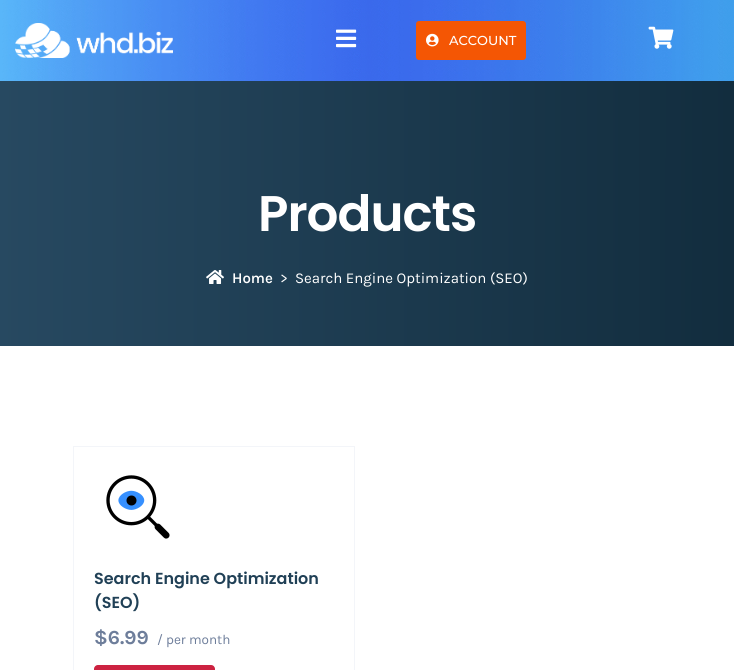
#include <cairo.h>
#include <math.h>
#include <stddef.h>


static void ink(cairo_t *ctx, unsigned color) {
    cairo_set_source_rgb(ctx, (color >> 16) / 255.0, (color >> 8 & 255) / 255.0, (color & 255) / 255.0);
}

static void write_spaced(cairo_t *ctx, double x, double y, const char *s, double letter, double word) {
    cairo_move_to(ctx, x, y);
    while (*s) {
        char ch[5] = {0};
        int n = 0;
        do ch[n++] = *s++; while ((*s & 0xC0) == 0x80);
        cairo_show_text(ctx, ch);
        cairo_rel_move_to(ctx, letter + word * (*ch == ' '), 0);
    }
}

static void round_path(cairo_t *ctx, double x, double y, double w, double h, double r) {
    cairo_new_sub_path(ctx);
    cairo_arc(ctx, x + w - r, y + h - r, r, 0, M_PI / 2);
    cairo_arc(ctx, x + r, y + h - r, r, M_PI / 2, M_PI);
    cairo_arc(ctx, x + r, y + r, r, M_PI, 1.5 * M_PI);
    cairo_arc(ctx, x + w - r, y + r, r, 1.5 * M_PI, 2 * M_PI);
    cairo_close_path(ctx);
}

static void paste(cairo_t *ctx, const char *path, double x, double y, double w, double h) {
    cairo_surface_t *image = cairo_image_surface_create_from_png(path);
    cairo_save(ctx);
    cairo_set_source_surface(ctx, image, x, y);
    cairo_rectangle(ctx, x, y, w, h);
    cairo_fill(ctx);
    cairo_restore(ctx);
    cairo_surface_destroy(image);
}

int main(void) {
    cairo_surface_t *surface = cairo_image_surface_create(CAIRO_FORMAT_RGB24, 734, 670);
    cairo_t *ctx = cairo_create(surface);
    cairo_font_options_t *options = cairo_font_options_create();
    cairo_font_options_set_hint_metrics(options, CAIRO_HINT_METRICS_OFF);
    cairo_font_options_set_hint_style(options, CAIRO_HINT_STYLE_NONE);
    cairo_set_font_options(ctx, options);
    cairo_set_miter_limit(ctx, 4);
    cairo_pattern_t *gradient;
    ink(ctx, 0xFFFFFF);
    cairo_paint(ctx);
    paste(ctx, "media/1.png", 0, 0, 734, 81);
    paste(ctx, "media/2.png", 15, 23, 158, 35);
    paste(ctx, "media/3.png", 336, 29, 21, 19);
    ink(ctx, 0xF45604);
    round_path(ctx, 416, 21, 110, 39, 3);
    cairo_fill(ctx);
    paste(ctx, "media/4.png", 426, 33, 13, 14);
    cairo_select_font_face(ctx, "Montserrat Medium", CAIRO_FONT_SLANT_NORMAL, CAIRO_FONT_WEIGHT_NORMAL);
    cairo_set_font_size(ctx, 13);
    ink(ctx, 0xFFFFFF);
    cairo_move_to(ctx, 449, 45);
    cairo_show_text(ctx, "ACCOUNT");
    paste(ctx, "media/5.png", 648, 26, 26, 23);
    gradient = cairo_pattern_create_linear(734, 214, 0, 213);
    cairo_pattern_add_color_stop_rgba(gradient, 0, 0.071, 0.176, 0.243, 1);
    cairo_pattern_add_color_stop_rgba(gradient, 1, 0.153, 0.286, 0.38, 1);
    cairo_set_source(ctx, gradient);
    cairo_pattern_destroy(gradient);
    cairo_rectangle(ctx, 0, 81, 734, 265);
    cairo_fill(ctx);
    cairo_select_font_face(ctx, "Poppins SemiBold", CAIRO_FONT_SLANT_NORMAL, CAIRO_FONT_WEIGHT_NORMAL);
    cairo_set_font_size(ctx, 50);
    ink(ctx, 0xFFFFFF);
    write_spaced(ctx, 258, 231, "Products", -1, 0);
    paste(ctx, "media/6.png", 206, 270, 18, 14);
    cairo_select_font_face(ctx, "Karla SemiBold", CAIRO_FONT_SLANT_NORMAL, CAIRO_FONT_WEIGHT_NORMAL);
    cairo_set_font_size(ctx, 15);
    cairo_move_to(ctx, 232, 283);
    cairo_show_text(ctx, "Home");
    cairo_select_font_face(ctx, "Karla", CAIRO_FONT_SLANT_NORMAL, CAIRO_FONT_WEIGHT_NORMAL);
    cairo_move_to(ctx, 280, 283);
    cairo_show_text(ctx, ">");
    cairo_move_to(ctx, 295, 283);
    cairo_show_text(ctx, "Search Engine Optimization (SEO)");
    cairo_rectangle(ctx, 73.5, 446.5, 281, 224);
    ink(ctx, 0xF3F5F9);
    cairo_set_line_width(ctx, 1);
    cairo_stroke(ctx);
    paste(ctx, "media/7.png", 106, 475, 64, 64);
    cairo_select_font_face(ctx, "Poppins SemiBold", CAIRO_FONT_SLANT_NORMAL, CAIRO_FONT_WEIGHT_NORMAL);
    cairo_set_font_size(ctx, 16);
    ink(ctx, 0x204056);
    cairo_move_to(ctx, 94, 584);
    cairo_show_text(ctx, "Search Engine Optimization");
    cairo_move_to(ctx, 94, 608);
    cairo_show_text(ctx, "(SEO)");
    cairo_select_font_face(ctx, "Karla", CAIRO_FONT_SLANT_NORMAL, CAIRO_FONT_WEIGHT_BOLD);
    cairo_set_font_size(ctx, 20);
    ink(ctx, 0x6D7D9A);
    cairo_move_to(ctx, 94, 644);
    cairo_show_text(ctx, "$6.99");
    cairo_select_font_face(ctx, "Karla", CAIRO_FONT_SLANT_NORMAL, CAIRO_FONT_WEIGHT_NORMAL);
    cairo_set_font_size(ctx, 13.5);
    cairo_move_to(ctx, 157, 644);
    cairo_show_text(ctx, "/ per month");
    ink(ctx, 0xCC2241);
    round_path(ctx, 94, 665, 121, 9, 4);
    cairo_fill(ctx);
    cairo_surface_write_to_png(surface, "image.png");
    cairo_font_options_destroy(options);
    cairo_destroy(ctx);
    cairo_surface_destroy(surface);
    return 0;
}
